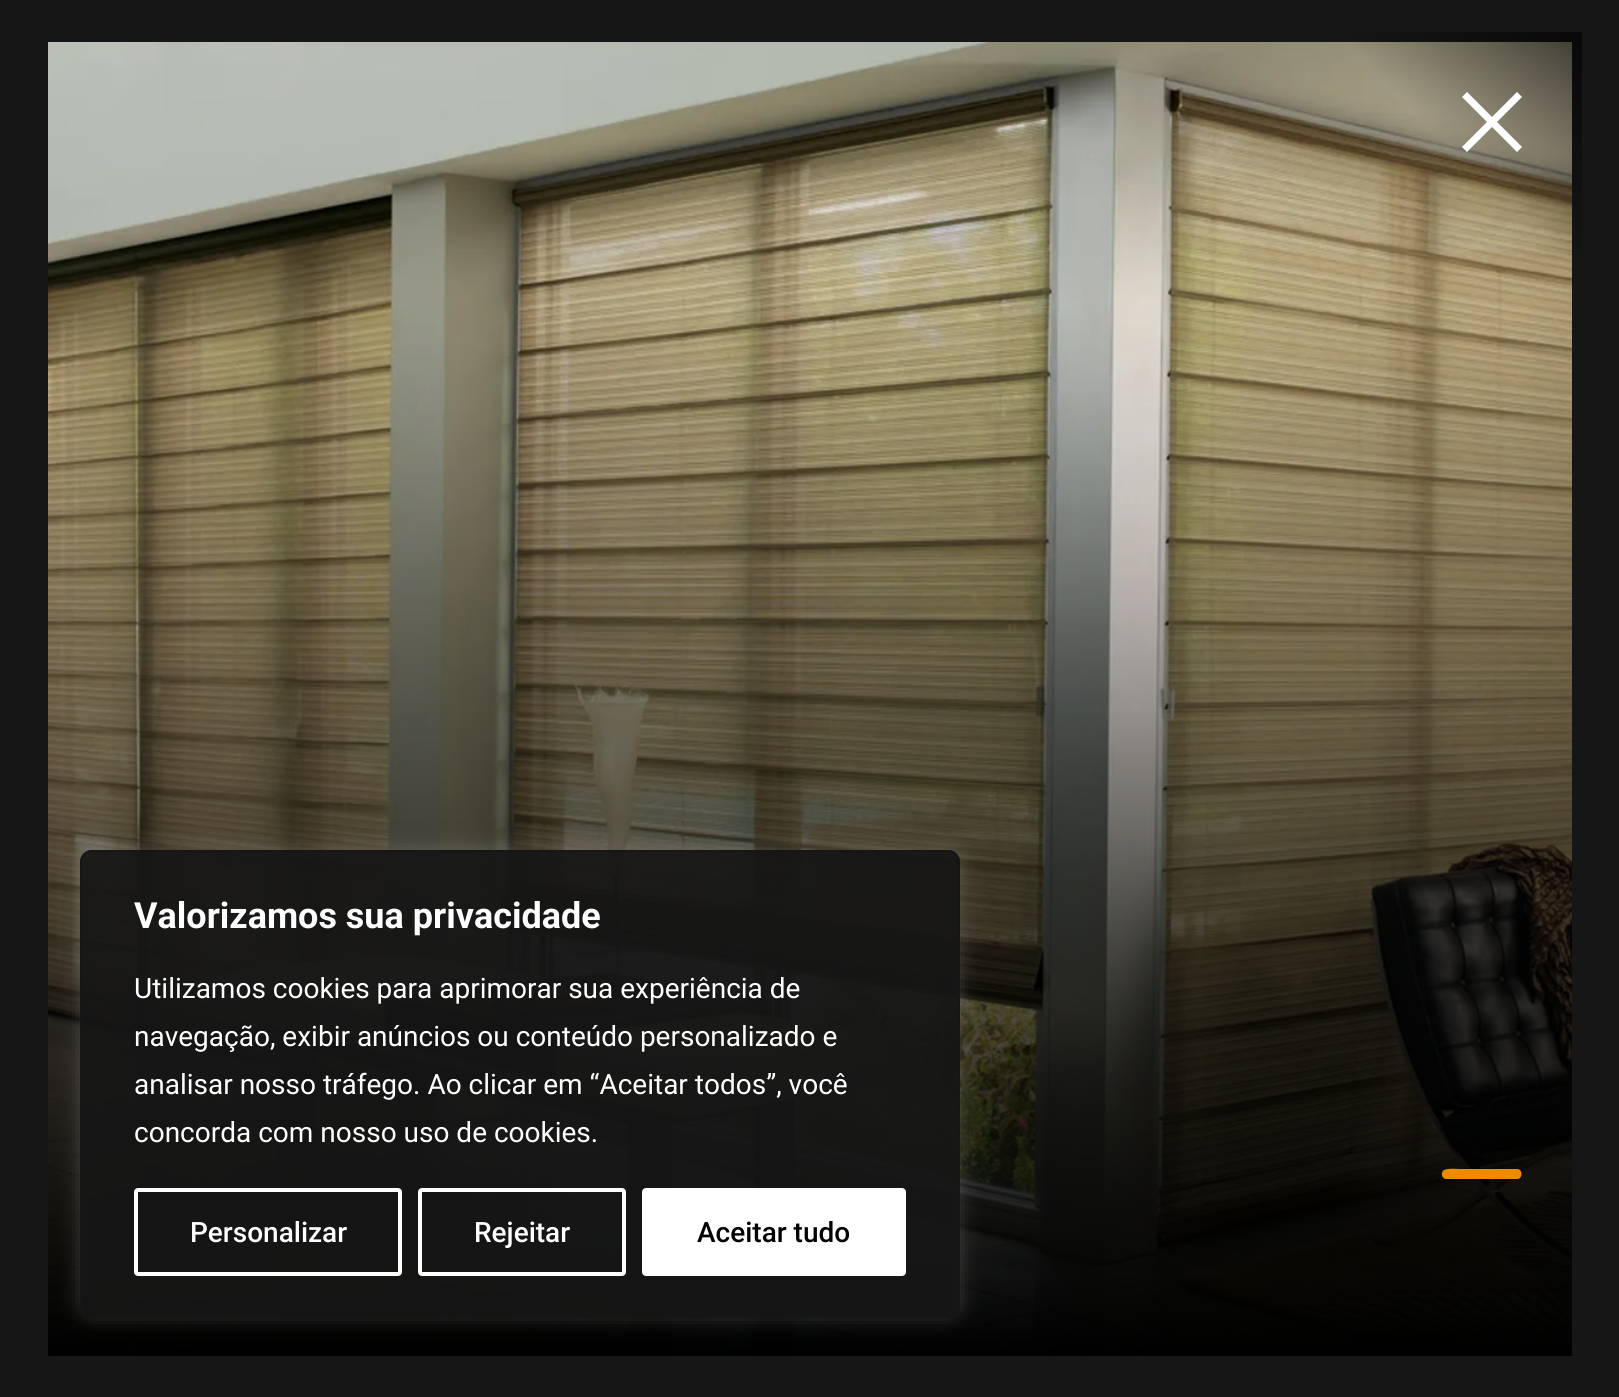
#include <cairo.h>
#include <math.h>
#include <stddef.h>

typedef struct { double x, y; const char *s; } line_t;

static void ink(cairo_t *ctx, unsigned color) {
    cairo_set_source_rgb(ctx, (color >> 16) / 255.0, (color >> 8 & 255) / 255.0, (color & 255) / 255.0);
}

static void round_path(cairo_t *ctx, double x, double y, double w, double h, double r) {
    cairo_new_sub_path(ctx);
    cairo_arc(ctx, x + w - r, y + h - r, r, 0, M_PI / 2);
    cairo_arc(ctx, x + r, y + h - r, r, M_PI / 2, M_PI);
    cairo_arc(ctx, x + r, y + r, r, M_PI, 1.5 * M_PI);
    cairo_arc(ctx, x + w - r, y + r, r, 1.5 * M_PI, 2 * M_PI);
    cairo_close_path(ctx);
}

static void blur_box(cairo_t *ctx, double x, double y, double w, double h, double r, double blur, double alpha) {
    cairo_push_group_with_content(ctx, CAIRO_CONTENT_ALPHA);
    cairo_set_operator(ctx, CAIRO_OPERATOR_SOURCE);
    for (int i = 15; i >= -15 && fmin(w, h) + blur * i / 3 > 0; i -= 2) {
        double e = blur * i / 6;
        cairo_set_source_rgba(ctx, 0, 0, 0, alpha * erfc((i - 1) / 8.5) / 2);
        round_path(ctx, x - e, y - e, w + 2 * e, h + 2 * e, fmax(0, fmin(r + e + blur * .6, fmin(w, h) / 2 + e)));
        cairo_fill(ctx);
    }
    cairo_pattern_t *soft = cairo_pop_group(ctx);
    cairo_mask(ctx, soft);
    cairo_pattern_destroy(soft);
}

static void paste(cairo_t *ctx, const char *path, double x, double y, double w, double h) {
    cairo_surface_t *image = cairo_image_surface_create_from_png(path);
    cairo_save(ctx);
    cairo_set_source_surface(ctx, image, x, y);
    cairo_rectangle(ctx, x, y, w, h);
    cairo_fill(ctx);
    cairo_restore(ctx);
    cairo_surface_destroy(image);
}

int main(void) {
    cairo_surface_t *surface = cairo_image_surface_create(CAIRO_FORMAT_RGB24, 1619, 1397);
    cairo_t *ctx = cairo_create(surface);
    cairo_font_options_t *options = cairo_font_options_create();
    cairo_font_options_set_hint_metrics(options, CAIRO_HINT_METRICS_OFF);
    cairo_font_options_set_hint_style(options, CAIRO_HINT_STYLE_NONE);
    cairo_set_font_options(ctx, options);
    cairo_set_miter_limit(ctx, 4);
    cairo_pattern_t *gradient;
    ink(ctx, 0x161616);
    cairo_paint(ctx);
    paste(ctx, "media/1.png", 48, 42, 1524, 1314);
    gradient = cairo_pattern_create_linear(1339, 283, 1586, 36);
    cairo_pattern_add_color_stop_rgba(gradient, 0.5, 0, 0, 0, 0);
    cairo_pattern_add_color_stop_rgba(gradient, 1, 0, 0, 0, 0.62);
    cairo_set_source(ctx, gradient);
    cairo_pattern_destroy(gradient);
    cairo_rectangle(ctx, 1353, 32, 229, 229);
    cairo_fill(ctx);
    ink(ctx, 0xFFFFFF);
    cairo_new_path(ctx);
    cairo_move_to(ctx, 1522, 97);
    cairo_line_to(ctx, 1517, 92);
    cairo_line_to(ctx, 1492, 117);
    cairo_line_to(ctx, 1467, 92);
    cairo_line_to(ctx, 1462, 97);
    cairo_line_to(ctx, 1487, 122);
    cairo_line_to(ctx, 1462, 147);
    cairo_line_to(ctx, 1467, 152);
    cairo_line_to(ctx, 1492, 127);
    cairo_line_to(ctx, 1517, 152);
    cairo_line_to(ctx, 1522, 147);
    cairo_line_to(ctx, 1497, 122);
    cairo_close_path(ctx);
    cairo_fill(ctx);
    ink(ctx, 0xED8B00);
    cairo_new_path(ctx);
    cairo_move_to(ctx, 1517, 1179);
    cairo_line_to(ctx, 1445, 1179);
    cairo_curve_to(ctx, 1441, 1177, 1441, 1172, 1444, 1170);
    cairo_curve_to(ctx, 1448, 1168, 1459, 1169, 1459, 1169);
    cairo_line_to(ctx, 1517, 1169);
    cairo_curve_to(ctx, 1523, 1169, 1523, 1179, 1517, 1179);
    cairo_close_path(ctx);
    cairo_fill(ctx);
    cairo_save(ctx);
    cairo_set_fill_rule(ctx, CAIRO_FILL_RULE_EVEN_ODD);
    cairo_new_path(ctx);
    cairo_move_to(ctx, 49, 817);
    cairo_line_to(ctx, 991, 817);
    cairo_line_to(ctx, 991, 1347);
    cairo_line_to(ctx, 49, 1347);
    cairo_close_path(ctx);
    cairo_move_to(ctx, 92, 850);
    cairo_line_to(ctx, 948, 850);
    cairo_curve_to(ctx, 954.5, 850, 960, 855.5, 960, 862);
    cairo_line_to(ctx, 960, 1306);
    cairo_curve_to(ctx, 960, 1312.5, 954.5, 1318, 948, 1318);
    cairo_line_to(ctx, 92, 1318);
    cairo_curve_to(ctx, 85.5, 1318, 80, 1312.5, 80, 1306);
    cairo_line_to(ctx, 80, 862);
    cairo_curve_to(ctx, 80, 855.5, 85.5, 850, 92, 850);
    cairo_close_path(ctx);
    cairo_clip(ctx);
    ink(ctx, 0xACABAB);
    blur_box(ctx, 80, 848, 880, 468, 12, 10, 0.3);
    cairo_restore(ctx);
    cairo_set_source_rgba(ctx, 0.086, 0.086, 0.086, 0.92);
    round_path(ctx, 80, 850, 880, 468, 12);
    cairo_fill(ctx);
    round_path(ctx, 81, 851, 878, 466, 11);
    cairo_stroke(ctx);
    cairo_select_font_face(ctx, "Roboto", CAIRO_FONT_SLANT_NORMAL, CAIRO_FONT_WEIGHT_BOLD);
    cairo_set_font_size(ctx, 36);
    ink(ctx, 0xFFFFFF);
    cairo_move_to(ctx, 134, 928);
    cairo_show_text(ctx, "Valorizamos sua privacidade");
    cairo_select_font_face(ctx, "Roboto", CAIRO_FONT_SLANT_NORMAL, CAIRO_FONT_WEIGHT_NORMAL);
    cairo_set_font_size(ctx, 28);
    {
        static const line_t items[] = {
            {134, 998, "Utilizamos cookies para aprimorar sua experiência de"},
            {134, 1046, "navegação, exibir anúncios ou conteúdo personalizado e"},
            {134, 1094, "analisar nosso tráfego. Ao clicar em “Aceitar todos”, você"},
            {134, 1142, "concorda com nosso uso de cookies."},
        };
        for (size_t i = 0; i < sizeof items / sizeof *items; i++) {
            cairo_move_to(ctx, items[i].x, items[i].y);
            cairo_show_text(ctx, items[i].s);
        }
    }
    round_path(ctx, 136, 1190, 264, 84, 2);
    cairo_set_line_width(ctx, 4);
    cairo_stroke(ctx);
    cairo_select_font_face(ctx, "Roboto Medium", CAIRO_FONT_SLANT_NORMAL, CAIRO_FONT_WEIGHT_NORMAL);
    cairo_move_to(ctx, 190, 1242);
    cairo_show_text(ctx, "Personalizar");
    round_path(ctx, 420, 1190, 204, 84, 2);
    cairo_stroke(ctx);
    cairo_move_to(ctx, 474, 1242);
    cairo_show_text(ctx, "Rejeitar");
    round_path(ctx, 644, 1190, 260, 84, 2);
    cairo_fill_preserve(ctx);
    cairo_stroke(ctx);
    ink(ctx, 0x000000);
    cairo_move_to(ctx, 697, 1242);
    cairo_show_text(ctx, "Aceitar tudo");
    cairo_surface_write_to_png(surface, "image.png");
    cairo_font_options_destroy(options);
    cairo_destroy(ctx);
    cairo_surface_destroy(surface);
    return 0;
}
